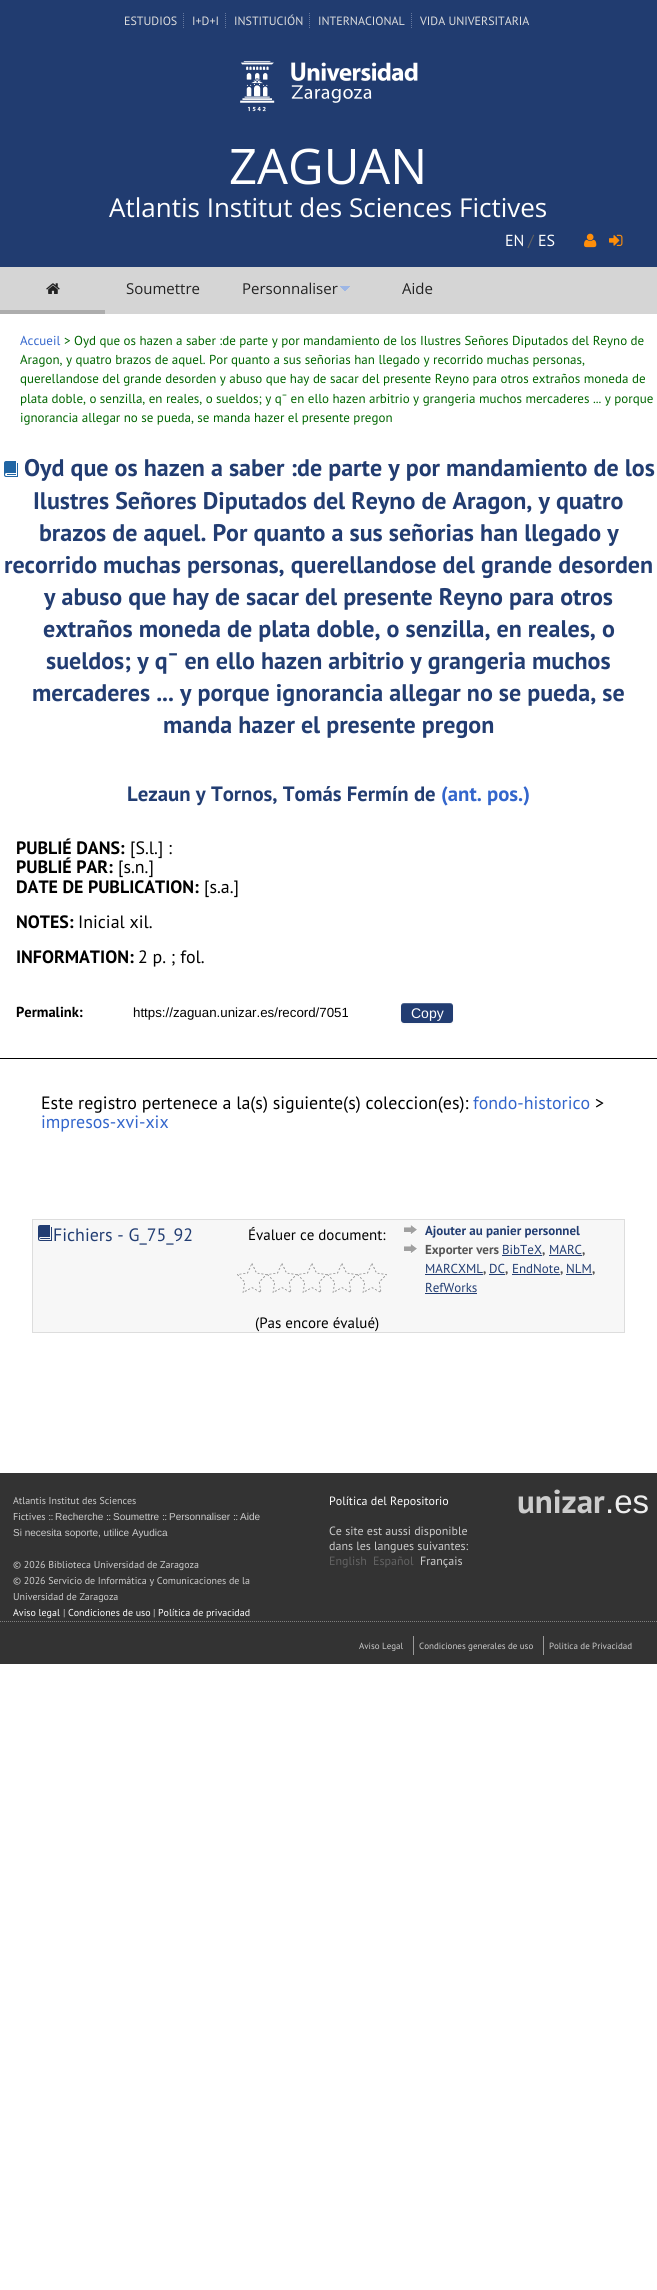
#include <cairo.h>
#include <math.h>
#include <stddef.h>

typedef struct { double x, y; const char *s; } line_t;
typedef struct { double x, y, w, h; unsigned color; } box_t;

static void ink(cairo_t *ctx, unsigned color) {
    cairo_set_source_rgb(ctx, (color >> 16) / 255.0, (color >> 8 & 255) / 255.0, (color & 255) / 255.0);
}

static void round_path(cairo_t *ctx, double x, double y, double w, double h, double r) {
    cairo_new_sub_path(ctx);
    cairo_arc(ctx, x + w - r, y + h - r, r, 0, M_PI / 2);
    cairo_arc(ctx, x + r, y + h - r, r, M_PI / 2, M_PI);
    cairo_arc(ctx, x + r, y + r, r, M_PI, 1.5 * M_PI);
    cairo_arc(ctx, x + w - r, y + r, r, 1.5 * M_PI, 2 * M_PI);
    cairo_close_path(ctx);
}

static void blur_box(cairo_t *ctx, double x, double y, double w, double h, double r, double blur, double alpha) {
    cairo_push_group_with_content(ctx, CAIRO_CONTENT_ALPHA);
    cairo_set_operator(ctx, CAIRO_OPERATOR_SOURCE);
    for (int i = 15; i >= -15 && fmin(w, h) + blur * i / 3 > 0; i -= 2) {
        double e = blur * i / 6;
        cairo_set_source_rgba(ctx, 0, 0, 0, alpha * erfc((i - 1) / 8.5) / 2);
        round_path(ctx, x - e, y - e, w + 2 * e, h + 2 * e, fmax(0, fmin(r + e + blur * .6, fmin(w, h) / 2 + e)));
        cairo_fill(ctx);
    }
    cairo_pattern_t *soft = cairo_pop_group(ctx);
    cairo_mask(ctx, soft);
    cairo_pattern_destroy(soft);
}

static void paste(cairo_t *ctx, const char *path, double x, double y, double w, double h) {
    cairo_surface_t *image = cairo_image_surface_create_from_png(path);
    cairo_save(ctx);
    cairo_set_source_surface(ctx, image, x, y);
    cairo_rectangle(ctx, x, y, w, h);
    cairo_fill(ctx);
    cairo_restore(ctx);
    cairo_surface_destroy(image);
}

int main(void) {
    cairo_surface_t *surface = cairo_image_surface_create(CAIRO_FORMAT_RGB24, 657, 2290);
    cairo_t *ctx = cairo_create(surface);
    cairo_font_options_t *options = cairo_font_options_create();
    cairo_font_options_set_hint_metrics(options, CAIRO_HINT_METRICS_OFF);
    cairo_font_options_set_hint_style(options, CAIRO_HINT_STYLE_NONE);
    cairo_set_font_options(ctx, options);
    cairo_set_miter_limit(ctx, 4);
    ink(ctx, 0xFFFFFF);
    cairo_paint(ctx);
    ink(ctx, 0x213C70);
    cairo_rectangle(ctx, 0, 0, 657, 267);
    cairo_fill(ctx);
    cairo_select_font_face(ctx, "PT Sans", CAIRO_FONT_SLANT_NORMAL, CAIRO_FONT_WEIGHT_NORMAL);
    cairo_set_font_size(ctx, 12);
    ink(ctx, 0xDDDDDD);
    cairo_move_to(ctx, 124, 25);
    cairo_show_text(ctx, "ESTUDIOS");
    cairo_new_path(ctx);
    cairo_move_to(ctx, 183.5, 13);
    cairo_line_to(ctx, 183.5, 28);
    ink(ctx, 0x64779D);
    cairo_set_line_width(ctx, 1);
    cairo_set_dash(ctx, (double[]){1, 1}, 2, 0);
    cairo_stroke(ctx);
    ink(ctx, 0xDDDDDD);
    cairo_move_to(ctx, 192, 25);
    cairo_show_text(ctx, "I+D+I");
    cairo_new_path(ctx);
    cairo_move_to(ctx, 225.5, 13);
    cairo_line_to(ctx, 225.5, 28);
    ink(ctx, 0x64779D);
    cairo_stroke(ctx);
    ink(ctx, 0xDDDDDD);
    cairo_move_to(ctx, 234, 25);
    cairo_show_text(ctx, "INSTITUCIÓN");
    cairo_new_path(ctx);
    cairo_move_to(ctx, 309.5, 13);
    cairo_line_to(ctx, 309.5, 28);
    ink(ctx, 0x64779D);
    cairo_stroke(ctx);
    ink(ctx, 0xDDDDDD);
    cairo_move_to(ctx, 318, 25);
    cairo_show_text(ctx, "INTERNACIONAL");
    cairo_new_path(ctx);
    cairo_move_to(ctx, 411.5, 13);
    cairo_line_to(ctx, 411.5, 28);
    ink(ctx, 0x64779D);
    cairo_stroke(ctx);
    ink(ctx, 0xDDDDDD);
    cairo_move_to(ctx, 420, 25);
    cairo_show_text(ctx, "VIDA UNIVERSITARIA");
    paste(ctx, "media/1.png", 240, 61, 178, 51);
    cairo_select_font_face(ctx, "Open Sans", CAIRO_FONT_SLANT_NORMAL, CAIRO_FONT_WEIGHT_NORMAL);
    cairo_set_font_size(ctx, 49);
    ink(ctx, 0xFFFFFF);
    cairo_move_to(ctx, 229, 184);
    cairo_show_text(ctx, "ZAGUAN");
    cairo_set_font_size(ctx, 26);
    cairo_move_to(ctx, 109, 217);
    cairo_show_text(ctx, "Atlantis Institut des Sciences Fictives");
    ink(ctx, 0xD5D5D5);
    cairo_rectangle(ctx, 0, 267, 657, 47);
    cairo_fill(ctx);
    cairo_select_font_face(ctx, "PT Sans", CAIRO_FONT_SLANT_NORMAL, CAIRO_FONT_WEIGHT_NORMAL);
    cairo_set_font_size(ctx, 16);
    ink(ctx, 0xFFFFFF);
    cairo_move_to(ctx, 505, 246);
    cairo_show_text(ctx, "EN");
    ink(ctx, 0x626262);
    cairo_move_to(ctx, 528, 246);
    cairo_show_text(ctx, "/");
    ink(ctx, 0xFFFFFF);
    cairo_move_to(ctx, 538, 246);
    cairo_show_text(ctx, "ES");
    paste(ctx, "media/2.png", 584, 233, 13, 15);
    paste(ctx, "media/3.png", 609, 234, 14, 12);
    ink(ctx, 0xADADAD);
    cairo_rectangle(ctx, 0, 310, 105, 4);
    cairo_fill(ctx);
    paste(ctx, "media/4.png", 46, 283, 14, 11);
    cairo_select_font_face(ctx, "Open Sans", CAIRO_FONT_SLANT_NORMAL, CAIRO_FONT_WEIGHT_NORMAL);
    cairo_set_font_size(ctx, 15);
    ink(ctx, 0x222222);
    cairo_move_to(ctx, 126, 294);
    cairo_show_text(ctx, "Soumettre");
    cairo_move_to(ctx, 242, 294);
    cairo_show_text(ctx, "Personnaliser");
    paste(ctx, "media/5.png", 340, 286, 10, 5);
    cairo_move_to(ctx, 402, 294);
    cairo_show_text(ctx, "Aide");
    cairo_select_font_face(ctx, "PT Sans", CAIRO_FONT_SLANT_NORMAL, CAIRO_FONT_WEIGHT_NORMAL);
    cairo_set_font_size(ctx, 13);
    ink(ctx, 0x3366CC);
    cairo_move_to(ctx, 20, 345);
    cairo_show_text(ctx, "Accueil");
    ink(ctx, 0x006600);
    {
        static const line_t items[] = {
            {64, 345, "> Oyd que os hazen a saber :de parte y por mandamiento de los Ilustres Señores Diputados del Reyno de"},
            {20, 364, "Aragon, y quatro brazos de aquel. Por quanto a sus señorias han llegado y recorrido muchas personas,"},
            {20, 383, "querellandose del grande desorden y abuso que hay de sacar del presente Reyno para otros extraños moneda de"},
            {20, 403, "plata doble, o senzilla, en reales, o sueldos; y q¯ en ello hazen arbitrio y grangeria muchos mercaderes ... y porque"},
            {20, 422, "ignorancia allegar no se pueda, se manda hazer el presente pregon"},
        };
        for (size_t i = 0; i < sizeof items / sizeof *items; i++) {
            cairo_move_to(ctx, items[i].x, items[i].y);
            cairo_show_text(ctx, items[i].s);
        }
    }
    paste(ctx, "media/6.png", 4, 461, 14, 16);
    cairo_select_font_face(ctx, "PT Sans", CAIRO_FONT_SLANT_NORMAL, CAIRO_FONT_WEIGHT_BOLD);
    cairo_set_font_size(ctx, 24);
    ink(ctx, 0x223D72);
    {
        static const line_t items[] = {
            {24, 476, "Oyd que os hazen a saber :de parte y por mandamiento de los"},
            {33, 509, "Ilustres Señores Diputados del Reyno de Aragon, y quatro"},
            {39, 541, "brazos de aquel. Por quanto a sus señorias han llegado y"},
            {4, 573, "recorrido muchas personas, querellandose del grande desorden"},
            {44, 605, "y abuso que hay de sacar del presente Reyno para otros"},
            {43, 637, "extraños moneda de plata doble, o senzilla, en reales, o"},
            {46, 669, "sueldos; y q¯ en ello hazen arbitrio y grangeria muchos"},
            {32, 701, "mercaderes ... y porque ignorancia allegar no se pueda, se"},
            {163, 733, "manda hazer el presente pregon"},
        };
        for (size_t i = 0; i < sizeof items / sizeof *items; i++) {
            cairo_move_to(ctx, items[i].x, items[i].y);
            cairo_show_text(ctx, items[i].s);
        }
    }
    cairo_set_font_size(ctx, 20.75);
    cairo_move_to(ctx, 127, 801);
    cairo_show_text(ctx, "Lezaun y Tornos, Tomás Fermín de");
    ink(ctx, 0x3366CC);
    cairo_move_to(ctx, 441, 801);
    cairo_show_text(ctx, "(ant. pos.)");
    cairo_set_font_size(ctx, 17.9);
    ink(ctx, 0x000000);
    cairo_move_to(ctx, 16, 854);
    cairo_show_text(ctx, "PUBLIÉ DANS:");
    cairo_select_font_face(ctx, "PT Sans", CAIRO_FONT_SLANT_NORMAL, CAIRO_FONT_WEIGHT_NORMAL);
    cairo_move_to(ctx, 130, 854);
    cairo_show_text(ctx, "[S.l.] :");
    cairo_select_font_face(ctx, "PT Sans", CAIRO_FONT_SLANT_NORMAL, CAIRO_FONT_WEIGHT_BOLD);
    cairo_move_to(ctx, 16, 873);
    cairo_show_text(ctx, "PUBLIÉ PAR:");
    cairo_select_font_face(ctx, "PT Sans", CAIRO_FONT_SLANT_NORMAL, CAIRO_FONT_WEIGHT_NORMAL);
    cairo_move_to(ctx, 118, 873);
    cairo_show_text(ctx, "[s.n.]");
    cairo_select_font_face(ctx, "PT Sans", CAIRO_FONT_SLANT_NORMAL, CAIRO_FONT_WEIGHT_BOLD);
    cairo_move_to(ctx, 16, 893);
    cairo_show_text(ctx, "DATE DE PUBLICATION:");
    cairo_select_font_face(ctx, "PT Sans", CAIRO_FONT_SLANT_NORMAL, CAIRO_FONT_WEIGHT_NORMAL);
    cairo_move_to(ctx, 204, 893);
    cairo_show_text(ctx, "[s.a.]");
    cairo_select_font_face(ctx, "PT Sans", CAIRO_FONT_SLANT_NORMAL, CAIRO_FONT_WEIGHT_BOLD);
    cairo_move_to(ctx, 16, 928);
    cairo_show_text(ctx, "NOTES:");
    cairo_select_font_face(ctx, "PT Sans", CAIRO_FONT_SLANT_NORMAL, CAIRO_FONT_WEIGHT_NORMAL);
    cairo_move_to(ctx, 78, 928);
    cairo_show_text(ctx, "Inicial xil.");
    cairo_select_font_face(ctx, "PT Sans", CAIRO_FONT_SLANT_NORMAL, CAIRO_FONT_WEIGHT_BOLD);
    cairo_move_to(ctx, 16, 963);
    cairo_show_text(ctx, "INFORMATION:");
    cairo_select_font_face(ctx, "PT Sans", CAIRO_FONT_SLANT_NORMAL, CAIRO_FONT_WEIGHT_NORMAL);
    cairo_move_to(ctx, 138, 963);
    cairo_show_text(ctx, "2 p. ; fol.");
    cairo_select_font_face(ctx, "PT Sans", CAIRO_FONT_SLANT_NORMAL, CAIRO_FONT_WEIGHT_BOLD);
    cairo_set_font_size(ctx, 14.5);
    cairo_move_to(ctx, 16, 1017);
    cairo_show_text(ctx, "Permalink:");
    cairo_select_font_face(ctx, "Liberation Sans", CAIRO_FONT_SLANT_NORMAL, CAIRO_FONT_WEIGHT_NORMAL);
    cairo_set_font_size(ctx, 13.3);
    cairo_move_to(ctx, 133, 1017);
    cairo_show_text(ctx, "https://zaguan.unizar.es/record/7051");
    ink(ctx, 0x000000);
    blur_box(ctx, 401, 1004, 52, 20, 3, 1, 0.05);
    ink(ctx, 0x223D72);
    round_path(ctx, 401, 1003, 52, 20, 3);
    cairo_fill(ctx);
    cairo_set_source_rgba(ctx, 1, 1, 1, 0.2);
    cairo_new_path(ctx);
    cairo_move_to(ctx, 404, 1004);
    cairo_line_to(ctx, 450, 1004);
    cairo_curve_to(ctx, 452, 1004, 453, 1005, 453, 1007);
    cairo_curve_to(ctx, 453, 1001, 447, 1003, 442, 1003);
    cairo_line_to(ctx, 412, 1003);
    cairo_curve_to(ctx, 407, 1003, 401, 1001, 401, 1007);
    cairo_curve_to(ctx, 401, 1005, 402, 1004, 404, 1004);
    cairo_close_path(ctx);
    cairo_fill(ctx);
    cairo_set_font_size(ctx, 14);
    ink(ctx, 0xFFFFFF);
    cairo_move_to(ctx, 411, 1018);
    cairo_show_text(ctx, "Copy");
    ink(ctx, 0x000000);
    cairo_rectangle(ctx, 0, 1058, 657, 1);
    cairo_fill(ctx);
    cairo_select_font_face(ctx, "PT Sans", CAIRO_FONT_SLANT_NORMAL, CAIRO_FONT_WEIGHT_NORMAL);
    cairo_set_font_size(ctx, 17.9);
    cairo_move_to(ctx, 41, 1109);
    cairo_show_text(ctx, "Este registro pertenece a la(s) siguiente(s) coleccion(es):");
    ink(ctx, 0x3366CC);
    cairo_move_to(ctx, 473, 1109);
    cairo_show_text(ctx, "fondo-historico");
    ink(ctx, 0x000000);
    cairo_move_to(ctx, 595, 1109);
    cairo_show_text(ctx, ">");
    ink(ctx, 0x3366CC);
    cairo_move_to(ctx, 41, 1128);
    cairo_show_text(ctx, "impresos-xvi-xix");
    {
        static const box_t items[] = {
            {33, 1220, 591, 112, 0xF7F7F7},
            {32, 1219, 593, 1, 0xDDDDDD},
            {624, 1219, 1, 114, 0xDDDDDD},
            {32, 1332, 593, 1, 0xDDDDDD},
            {32, 1219, 1, 114, 0xDDDDDD},
        };
        for (size_t i = 0; i < sizeof items / sizeof *items; i++) {
            ink(ctx, items[i].color);
            cairo_rectangle(ctx, items[i].x, items[i].y, items[i].w, items[i].h);
            cairo_fill(ctx);
        }
    }
    paste(ctx, "media/7.png", 38, 1225, 14, 16);
    ink(ctx, 0x223D72);
    cairo_move_to(ctx, 53, 1241);
    cairo_show_text(ctx, "Fichiers - G_75_92");
    cairo_set_font_size(ctx, 15);
    ink(ctx, 0x000000);
    cairo_move_to(ctx, 248, 1240);
    cairo_show_text(ctx, "Évaluer ce document:");
    paste(ctx, "media/8.png", 237, 1263, 30, 30);
    paste(ctx, "media/8.png", 267, 1263, 30, 30);
    paste(ctx, "media/8.png", 297, 1263, 30, 30);
    paste(ctx, "media/8.png", 327, 1263, 30, 30);
    paste(ctx, "media/8.png", 357, 1263, 30, 30);
    cairo_move_to(ctx, 255, 1328);
    cairo_show_text(ctx, "(Pas encore évalué)");
    paste(ctx, "media/9.png", 404, 1225, 13, 10);
    cairo_select_font_face(ctx, "PT Sans", CAIRO_FONT_SLANT_NORMAL, CAIRO_FONT_WEIGHT_BOLD);
    cairo_set_font_size(ctx, 13);
    ink(ctx, 0x223D72);
    cairo_move_to(ctx, 425, 1235);
    cairo_show_text(ctx, "Ajouter au panier personnel");
    paste(ctx, "media/9.png", 404, 1244, 13, 10);
    ink(ctx, 0x555555);
    cairo_move_to(ctx, 425, 1254);
    cairo_show_text(ctx, "Exporter vers");
    cairo_select_font_face(ctx, "PT Sans", CAIRO_FONT_SLANT_NORMAL, CAIRO_FONT_WEIGHT_NORMAL);
    ink(ctx, 0x223D72);
    cairo_move_to(ctx, 502, 1254);
    cairo_show_text(ctx, "BibTeX");
    cairo_rectangle(ctx, 502, 1255, 40, 1);
    cairo_fill(ctx);
    cairo_select_font_face(ctx, "PT Sans", CAIRO_FONT_SLANT_NORMAL, CAIRO_FONT_WEIGHT_BOLD);
    ink(ctx, 0x555555);
    cairo_move_to(ctx, 542, 1254);
    cairo_show_text(ctx, ",");
    cairo_select_font_face(ctx, "PT Sans", CAIRO_FONT_SLANT_NORMAL, CAIRO_FONT_WEIGHT_NORMAL);
    ink(ctx, 0x223D72);
    cairo_move_to(ctx, 549, 1254);
    cairo_show_text(ctx, "MARC");
    cairo_rectangle(ctx, 549, 1255, 33, 1);
    cairo_fill(ctx);
    cairo_select_font_face(ctx, "PT Sans", CAIRO_FONT_SLANT_NORMAL, CAIRO_FONT_WEIGHT_BOLD);
    ink(ctx, 0x555555);
    cairo_move_to(ctx, 582, 1254);
    cairo_show_text(ctx, ",");
    cairo_select_font_face(ctx, "PT Sans", CAIRO_FONT_SLANT_NORMAL, CAIRO_FONT_WEIGHT_NORMAL);
    ink(ctx, 0x223D72);
    cairo_move_to(ctx, 425, 1273);
    cairo_show_text(ctx, "MARCXML");
    cairo_rectangle(ctx, 425, 1274, 58, 1);
    cairo_fill(ctx);
    cairo_select_font_face(ctx, "PT Sans", CAIRO_FONT_SLANT_NORMAL, CAIRO_FONT_WEIGHT_BOLD);
    ink(ctx, 0x555555);
    cairo_move_to(ctx, 483, 1273);
    cairo_show_text(ctx, ",");
    cairo_select_font_face(ctx, "PT Sans", CAIRO_FONT_SLANT_NORMAL, CAIRO_FONT_WEIGHT_NORMAL);
    ink(ctx, 0x223D72);
    cairo_move_to(ctx, 489, 1273);
    cairo_show_text(ctx, "DC");
    cairo_rectangle(ctx, 489, 1274, 16, 1);
    cairo_fill(ctx);
    cairo_select_font_face(ctx, "PT Sans", CAIRO_FONT_SLANT_NORMAL, CAIRO_FONT_WEIGHT_BOLD);
    ink(ctx, 0x555555);
    cairo_move_to(ctx, 505, 1273);
    cairo_show_text(ctx, ",");
    cairo_select_font_face(ctx, "PT Sans", CAIRO_FONT_SLANT_NORMAL, CAIRO_FONT_WEIGHT_NORMAL);
    ink(ctx, 0x223D72);
    cairo_move_to(ctx, 512, 1273);
    cairo_show_text(ctx, "EndNote");
    cairo_rectangle(ctx, 512, 1274, 48, 1);
    cairo_fill(ctx);
    cairo_select_font_face(ctx, "PT Sans", CAIRO_FONT_SLANT_NORMAL, CAIRO_FONT_WEIGHT_BOLD);
    ink(ctx, 0x555555);
    cairo_move_to(ctx, 560, 1273);
    cairo_show_text(ctx, ",");
    cairo_select_font_face(ctx, "PT Sans", CAIRO_FONT_SLANT_NORMAL, CAIRO_FONT_WEIGHT_NORMAL);
    ink(ctx, 0x223D72);
    cairo_move_to(ctx, 566, 1273);
    cairo_show_text(ctx, "NLM");
    cairo_rectangle(ctx, 566, 1274, 26, 1);
    cairo_fill(ctx);
    cairo_select_font_face(ctx, "PT Sans", CAIRO_FONT_SLANT_NORMAL, CAIRO_FONT_WEIGHT_BOLD);
    ink(ctx, 0x555555);
    cairo_move_to(ctx, 592, 1273);
    cairo_show_text(ctx, ",");
    cairo_select_font_face(ctx, "PT Sans", CAIRO_FONT_SLANT_NORMAL, CAIRO_FONT_WEIGHT_NORMAL);
    ink(ctx, 0x223D72);
    cairo_move_to(ctx, 425, 1292);
    cairo_show_text(ctx, "RefWorks");
    cairo_rectangle(ctx, 425, 1293, 52, 1);
    cairo_fill(ctx);
    ink(ctx, 0x333333);
    cairo_rectangle(ctx, 0, 1473, 657, 191);
    cairo_fill(ctx);
    cairo_set_font_size(ctx, 10);
    ink(ctx, 0xCCCCCC);
    cairo_move_to(ctx, 13, 1504);
    cairo_show_text(ctx, "Atlantis Institut des Sciences");
    cairo_move_to(ctx, 13, 1520);
    cairo_show_text(ctx, "Fictives ::");
    cairo_select_font_face(ctx, "Liberation Sans", CAIRO_FONT_SLANT_NORMAL, CAIRO_FONT_WEIGHT_NORMAL);
    cairo_move_to(ctx, 55, 1520);
    cairo_show_text(ctx, "Recherche");
    cairo_select_font_face(ctx, "PT Sans", CAIRO_FONT_SLANT_NORMAL, CAIRO_FONT_WEIGHT_NORMAL);
    cairo_move_to(ctx, 106, 1520);
    cairo_show_text(ctx, "::");
    cairo_select_font_face(ctx, "Liberation Sans", CAIRO_FONT_SLANT_NORMAL, CAIRO_FONT_WEIGHT_NORMAL);
    cairo_move_to(ctx, 113, 1520);
    cairo_show_text(ctx, "Soumettre");
    cairo_select_font_face(ctx, "PT Sans", CAIRO_FONT_SLANT_NORMAL, CAIRO_FONT_WEIGHT_NORMAL);
    cairo_move_to(ctx, 162, 1520);
    cairo_show_text(ctx, "::");
    cairo_select_font_face(ctx, "Liberation Sans", CAIRO_FONT_SLANT_NORMAL, CAIRO_FONT_WEIGHT_NORMAL);
    cairo_move_to(ctx, 169, 1520);
    cairo_show_text(ctx, "Personnaliser");
    cairo_select_font_face(ctx, "PT Sans", CAIRO_FONT_SLANT_NORMAL, CAIRO_FONT_WEIGHT_NORMAL);
    cairo_move_to(ctx, 233, 1520);
    cairo_show_text(ctx, "::");
    cairo_select_font_face(ctx, "Liberation Sans", CAIRO_FONT_SLANT_NORMAL, CAIRO_FONT_WEIGHT_NORMAL);
    cairo_move_to(ctx, 240, 1520);
    cairo_show_text(ctx, "Aide");
    cairo_move_to(ctx, 13, 1536);
    cairo_show_text(ctx, "Si necesita soporte, utilice Ayudica");
    cairo_select_font_face(ctx, "PT Sans", CAIRO_FONT_SLANT_NORMAL, CAIRO_FONT_WEIGHT_NORMAL);
    {
        static const line_t items[] = {
            {13, 1568, "© 2026 Biblioteca Universidad de Zaragoza"},
            {13, 1584, "© 2026 Servicio de Informática y Comunicaciones de la"},
            {13, 1600, "Universidad de Zaragoza"},
        };
        for (size_t i = 0; i < sizeof items / sizeof *items; i++) {
            cairo_move_to(ctx, items[i].x, items[i].y);
            cairo_show_text(ctx, items[i].s);
        }
    }
    ink(ctx, 0xFFFFFF);
    cairo_move_to(ctx, 13, 1616);
    cairo_show_text(ctx, "Aviso legal");
    ink(ctx, 0xCCCCCC);
    cairo_move_to(ctx, 63, 1616);
    cairo_show_text(ctx, "|");
    ink(ctx, 0xFFFFFF);
    cairo_move_to(ctx, 68, 1616);
    cairo_show_text(ctx, "Condiciones de uso");
    ink(ctx, 0xCCCCCC);
    cairo_move_to(ctx, 153, 1616);
    cairo_show_text(ctx, "|");
    ink(ctx, 0xFFFFFF);
    cairo_move_to(ctx, 158, 1616);
    cairo_show_text(ctx, "Política de privacidad");
    cairo_set_font_size(ctx, 12);
    cairo_move_to(ctx, 329, 1505);
    cairo_show_text(ctx, "Política del Repositorio");
    ink(ctx, 0xCCCCCC);
    cairo_move_to(ctx, 329, 1535);
    cairo_show_text(ctx, "Ce site est aussi disponible");
    cairo_move_to(ctx, 329, 1550);
    cairo_show_text(ctx, "dans les langues suivantes:");
    ink(ctx, 0x626262);
    cairo_move_to(ctx, 329, 1565);
    cairo_show_text(ctx, "English");
    cairo_move_to(ctx, 373, 1565);
    cairo_show_text(ctx, "Español");
    ink(ctx, 0xCCCCCC);
    cairo_move_to(ctx, 420, 1565);
    cairo_show_text(ctx, "Français");
    cairo_select_font_face(ctx, "PT Sans", CAIRO_FONT_SLANT_NORMAL, CAIRO_FONT_WEIGHT_BOLD);
    cairo_set_font_size(ctx, 33);
    cairo_move_to(ctx, 517, 1513);
    cairo_show_text(ctx, "unizar");
    cairo_select_font_face(ctx, "Liberation Sans", CAIRO_FONT_SLANT_NORMAL, CAIRO_FONT_WEIGHT_NORMAL);
    ink(ctx, 0xEEEEEE);
    cairo_move_to(ctx, 605, 1513);
    cairo_show_text(ctx, ".es");
    cairo_new_path(ctx);
    cairo_move_to(ctx, -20, 1621.5);
    cairo_line_to(ctx, 657, 1621.5);
    ink(ctx, 0x808080);
    cairo_stroke(ctx);
    cairo_select_font_face(ctx, "PT Sans", CAIRO_FONT_SLANT_NORMAL, CAIRO_FONT_WEIGHT_NORMAL);
    cairo_set_font_size(ctx, 9);
    ink(ctx, 0xCCCCCC);
    cairo_move_to(ctx, 359, 1649);
    cairo_show_text(ctx, "Aviso Legal");
    ink(ctx, 0x999999);
    cairo_rectangle(ctx, 413, 1636, 1, 19);
    cairo_fill(ctx);
    ink(ctx, 0xCCCCCC);
    cairo_move_to(ctx, 419, 1649);
    cairo_show_text(ctx, "Condiciones generales de uso");
    ink(ctx, 0x999999);
    cairo_rectangle(ctx, 543, 1636, 1, 19);
    cairo_fill(ctx);
    ink(ctx, 0xCCCCCC);
    cairo_move_to(ctx, 549, 1649);
    cairo_show_text(ctx, "Politica de Privacidad");
    cairo_surface_write_to_png(surface, "image.png");
    cairo_font_options_destroy(options);
    cairo_destroy(ctx);
    cairo_surface_destroy(surface);
    return 0;
}
